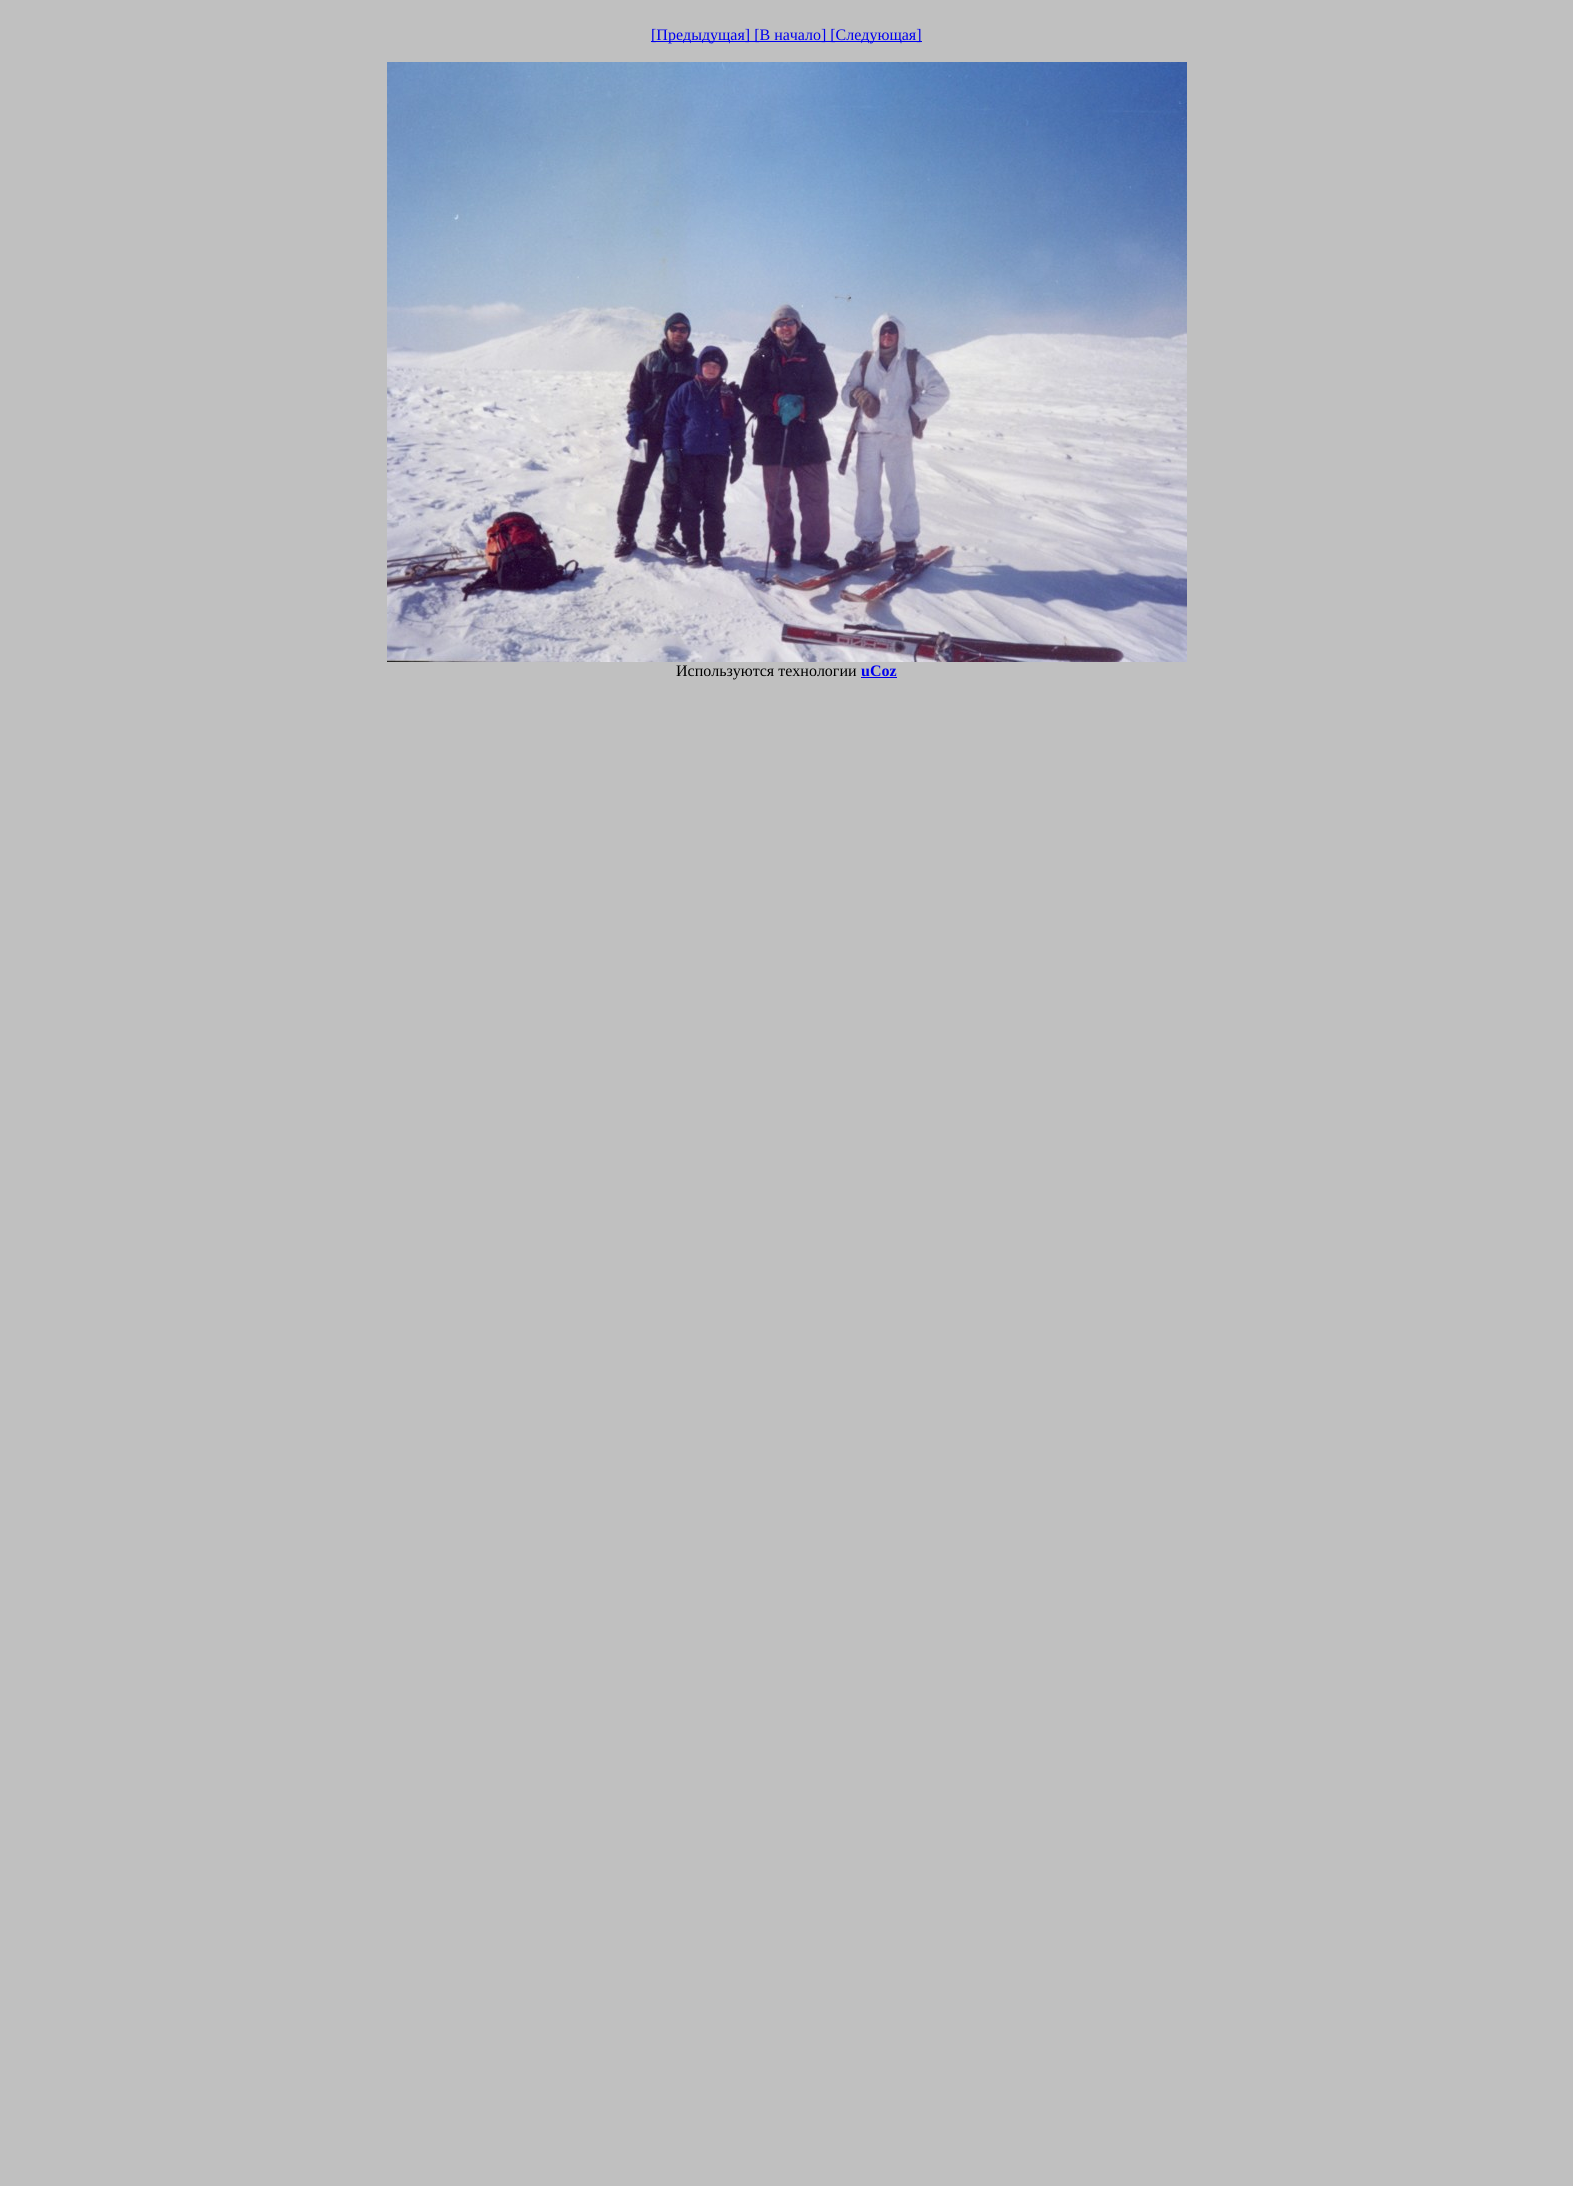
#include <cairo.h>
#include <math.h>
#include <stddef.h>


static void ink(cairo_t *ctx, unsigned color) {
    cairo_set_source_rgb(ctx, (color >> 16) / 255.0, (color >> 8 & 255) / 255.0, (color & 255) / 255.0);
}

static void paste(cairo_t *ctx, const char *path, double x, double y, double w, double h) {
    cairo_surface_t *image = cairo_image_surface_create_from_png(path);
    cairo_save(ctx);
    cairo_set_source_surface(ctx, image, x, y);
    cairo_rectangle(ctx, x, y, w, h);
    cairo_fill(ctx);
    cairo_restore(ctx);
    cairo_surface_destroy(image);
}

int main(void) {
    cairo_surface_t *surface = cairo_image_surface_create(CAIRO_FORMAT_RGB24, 1573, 2186);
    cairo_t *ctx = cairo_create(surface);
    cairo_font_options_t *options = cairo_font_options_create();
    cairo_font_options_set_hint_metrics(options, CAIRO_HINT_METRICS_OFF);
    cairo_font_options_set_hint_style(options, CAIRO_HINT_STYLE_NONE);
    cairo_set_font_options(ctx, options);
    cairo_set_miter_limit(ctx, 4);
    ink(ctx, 0xC0C0C0);
    cairo_paint(ctx);
    ink(ctx, 0x0000EE);
    cairo_rectangle(ctx, 651, 41, 271, 1);
    cairo_fill(ctx);
    cairo_select_font_face(ctx, "Liberation Serif", CAIRO_FONT_SLANT_NORMAL, CAIRO_FONT_WEIGHT_NORMAL);
    cairo_set_font_size(ctx, 16);
    cairo_move_to(ctx, 651, 40);
    cairo_show_text(ctx, "[Предыдущая] [В начало] [Следующая]");
    paste(ctx, "media/1.png", 387, 62, 800, 600);
    ink(ctx, 0x000000);
    cairo_move_to(ctx, 676, 676);
    cairo_show_text(ctx, "Используются технологии");
    cairo_select_font_face(ctx, "Liberation Serif", CAIRO_FONT_SLANT_NORMAL, CAIRO_FONT_WEIGHT_BOLD);
    ink(ctx, 0x0000EE);
    cairo_move_to(ctx, 861, 676);
    cairo_show_text(ctx, "uCoz");
    cairo_rectangle(ctx, 861, 677, 36, 1);
    cairo_fill(ctx);
    cairo_surface_write_to_png(surface, "image.png");
    cairo_font_options_destroy(options);
    cairo_destroy(ctx);
    cairo_surface_destroy(surface);
    return 0;
}
